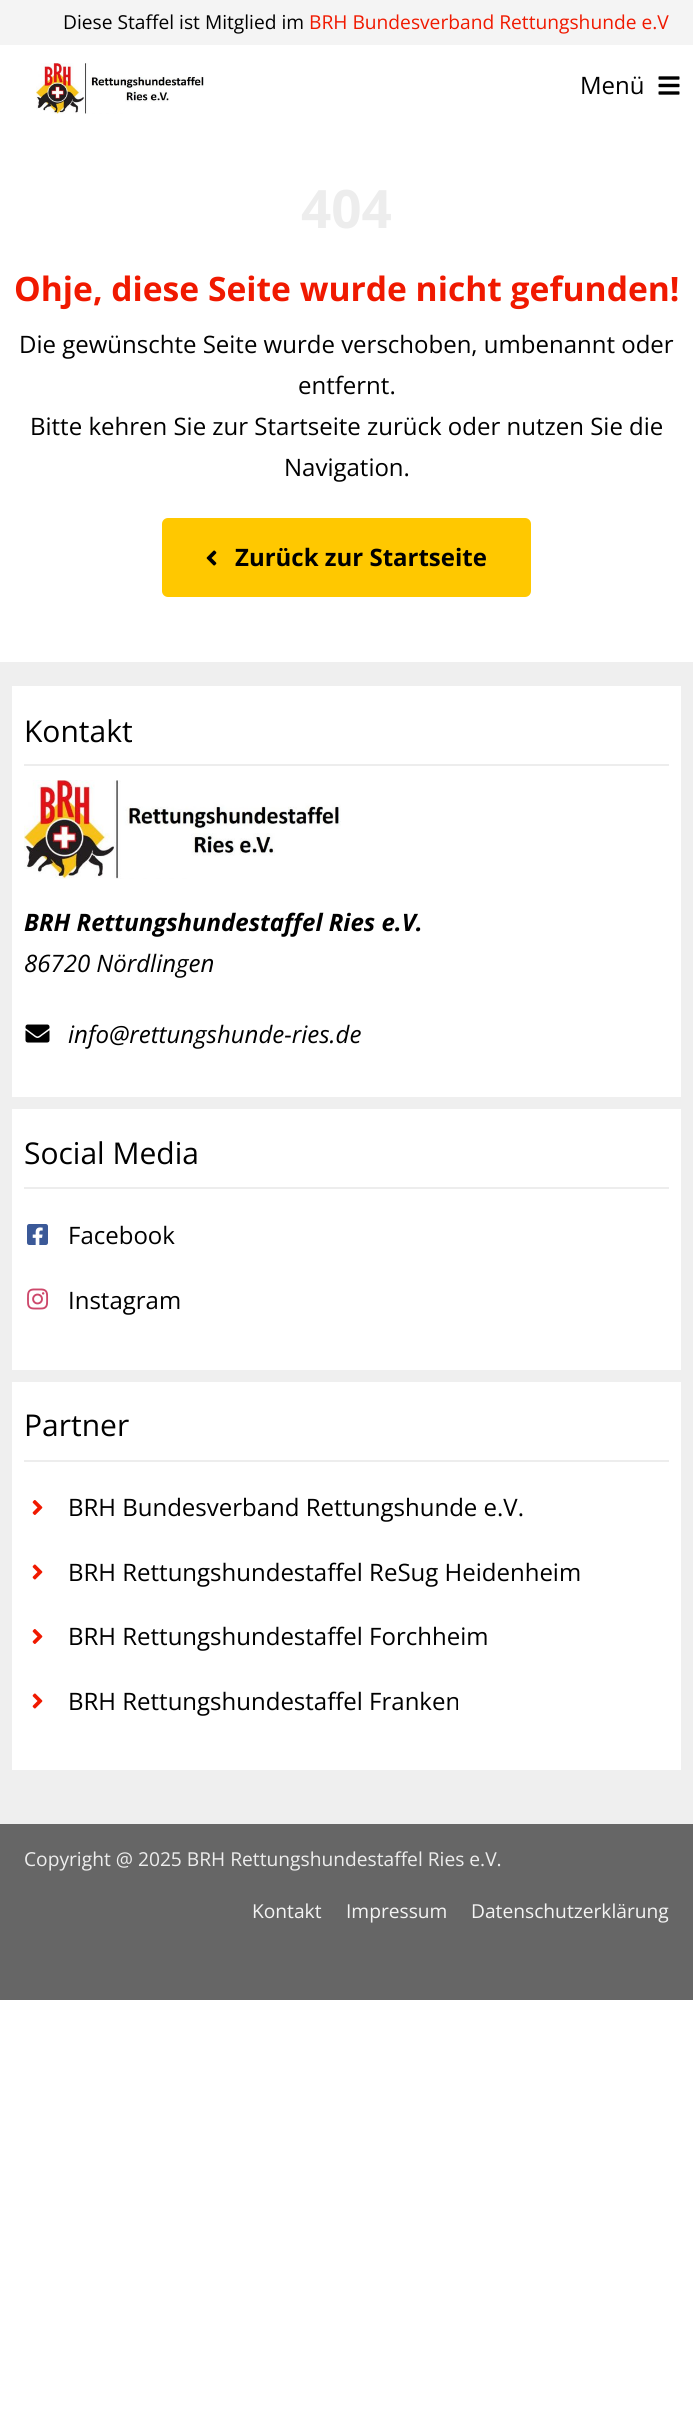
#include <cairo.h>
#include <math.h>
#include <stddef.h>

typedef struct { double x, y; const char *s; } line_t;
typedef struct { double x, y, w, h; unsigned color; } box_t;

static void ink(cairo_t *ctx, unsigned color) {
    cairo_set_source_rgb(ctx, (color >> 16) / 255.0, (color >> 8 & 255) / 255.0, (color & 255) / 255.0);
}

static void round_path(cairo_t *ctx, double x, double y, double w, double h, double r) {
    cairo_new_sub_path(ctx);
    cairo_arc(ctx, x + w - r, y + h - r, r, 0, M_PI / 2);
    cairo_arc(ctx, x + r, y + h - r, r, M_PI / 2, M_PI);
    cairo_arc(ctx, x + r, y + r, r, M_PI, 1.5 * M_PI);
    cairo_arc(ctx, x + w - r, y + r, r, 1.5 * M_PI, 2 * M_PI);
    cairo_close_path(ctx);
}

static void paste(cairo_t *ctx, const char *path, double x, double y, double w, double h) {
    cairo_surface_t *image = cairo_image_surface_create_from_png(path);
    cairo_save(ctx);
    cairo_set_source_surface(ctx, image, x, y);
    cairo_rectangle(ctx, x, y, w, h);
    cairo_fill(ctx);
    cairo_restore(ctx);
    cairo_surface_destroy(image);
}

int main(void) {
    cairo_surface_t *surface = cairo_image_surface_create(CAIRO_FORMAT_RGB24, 693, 2416);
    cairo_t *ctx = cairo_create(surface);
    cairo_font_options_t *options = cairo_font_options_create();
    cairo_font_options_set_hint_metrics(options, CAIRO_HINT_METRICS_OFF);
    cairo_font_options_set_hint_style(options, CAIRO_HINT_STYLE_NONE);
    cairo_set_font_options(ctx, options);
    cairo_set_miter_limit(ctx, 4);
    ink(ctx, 0xFFFFFF);
    cairo_paint(ctx);
    ink(ctx, 0xF4F4F4);
    cairo_rectangle(ctx, 0, 0, 693, 45);
    cairo_fill(ctx);
    cairo_select_font_face(ctx, "Open Sans", CAIRO_FONT_SLANT_NORMAL, CAIRO_FONT_WEIGHT_NORMAL);
    cairo_set_font_size(ctx, 19.2);
    ink(ctx, 0x000000);
    cairo_move_to(ctx, 63, 29);
    cairo_show_text(ctx, "Diese Staffel ist Mitglied im");
    ink(ctx, 0xF01900);
    cairo_move_to(ctx, 309, 29);
    cairo_show_text(ctx, "BRH Bundesverband Rettungshunde e.V");
    paste(ctx, "media/1.png", 36, 63, 168, 51);
    cairo_set_font_size(ctx, 24);
    ink(ctx, 0x000000);
    cairo_move_to(ctx, 580, 94);
    cairo_show_text(ctx, "Menü");
    paste(ctx, "media/2.png", 658, 76, 22, 19);
    cairo_select_font_face(ctx, "Open Sans", CAIRO_FONT_SLANT_NORMAL, CAIRO_FONT_WEIGHT_BOLD);
    cairo_set_font_size(ctx, 53);
    ink(ctx, 0xEDEDED);
    cairo_move_to(ctx, 301, 228);
    cairo_show_text(ctx, "404");
    cairo_set_font_size(ctx, 33.6);
    ink(ctx, 0xF01900);
    cairo_move_to(ctx, 14, 301);
    cairo_show_text(ctx, "Ohje, diese Seite wurde nicht gefunden!");
    cairo_select_font_face(ctx, "Open Sans", CAIRO_FONT_SLANT_NORMAL, CAIRO_FONT_WEIGHT_NORMAL);
    cairo_set_font_size(ctx, 24);
    ink(ctx, 0x000000);
    {
        static const line_t items[] = {
            {19, 353, "Die gewünschte Seite wurde verschoben, umbenannt oder"},
            {298, 394, "entfernt."},
            {30, 435, "Bitte kehren Sie zur Startseite zurück oder nutzen Sie die"},
            {284, 476, "Navigation."},
        };
        for (size_t i = 0; i < sizeof items / sizeof *items; i++) {
            cairo_move_to(ctx, items[i].x, items[i].y);
            cairo_show_text(ctx, items[i].s);
        }
    }
    ink(ctx, 0xFFC800);
    round_path(ctx, 162, 518, 369, 79, 6);
    cairo_fill(ctx);
    paste(ctx, "media/3.png", 206, 550, 11, 16);
    cairo_select_font_face(ctx, "Open Sans", CAIRO_FONT_SLANT_NORMAL, CAIRO_FONT_WEIGHT_BOLD);
    ink(ctx, 0x000000);
    cairo_move_to(ctx, 235, 566);
    cairo_show_text(ctx, "Zurück zur Startseite");
    {
        static const box_t items[] = {
            {0, 662, 693, 1162, 0xEFEFEF},
            {12, 686, 669, 411, 0xFFFFFF},
            {24, 764, 645, 2, 0xEDEDED},
        };
        for (size_t i = 0; i < sizeof items / sizeof *items; i++) {
            ink(ctx, items[i].color);
            cairo_rectangle(ctx, items[i].x, items[i].y, items[i].w, items[i].h);
            cairo_fill(ctx);
        }
    }
    cairo_select_font_face(ctx, "Open Sans", CAIRO_FONT_SLANT_NORMAL, CAIRO_FONT_WEIGHT_NORMAL);
    cairo_set_font_size(ctx, 30);
    ink(ctx, 0x000000);
    cairo_move_to(ctx, 24, 742);
    cairo_show_text(ctx, "Kontakt");
    paste(ctx, "media/4.png", 24, 780, 317, 99);
    cairo_select_font_face(ctx, "Open Sans", CAIRO_FONT_SLANT_ITALIC, CAIRO_FONT_WEIGHT_BOLD);
    cairo_set_font_size(ctx, 24);
    cairo_move_to(ctx, 24, 931);
    cairo_show_text(ctx, "BRH Rettungshundestaffel Ries e.V.");
    cairo_select_font_face(ctx, "Open Sans", CAIRO_FONT_SLANT_ITALIC, CAIRO_FONT_WEIGHT_NORMAL);
    cairo_move_to(ctx, 24, 972);
    cairo_show_text(ctx, "86720 Nördlingen");
    paste(ctx, "media/5.png", 25, 1024, 25, 19);
    cairo_move_to(ctx, 68, 1043);
    cairo_show_text(ctx, "info@rettungshunde-ries.de");
    ink(ctx, 0xFFFFFF);
    cairo_rectangle(ctx, 12, 1109, 669, 261);
    cairo_fill(ctx);
    ink(ctx, 0xEDEDED);
    cairo_rectangle(ctx, 24, 1187, 645, 2);
    cairo_fill(ctx);
    cairo_select_font_face(ctx, "Open Sans", CAIRO_FONT_SLANT_NORMAL, CAIRO_FONT_WEIGHT_NORMAL);
    cairo_set_font_size(ctx, 30);
    ink(ctx, 0x000000);
    cairo_move_to(ctx, 24, 1164);
    cairo_show_text(ctx, "Social Media");
    paste(ctx, "media/6.png", 27, 1224, 21, 21);
    cairo_set_font_size(ctx, 24);
    cairo_move_to(ctx, 68, 1244);
    cairo_show_text(ctx, "Facebook");
    paste(ctx, "media/7.png", 27, 1288, 22, 22);
    cairo_move_to(ctx, 68, 1309);
    cairo_show_text(ctx, "Instagram");
    ink(ctx, 0xFFFFFF);
    cairo_rectangle(ctx, 12, 1382, 669, 388);
    cairo_fill(ctx);
    ink(ctx, 0xEDEDED);
    cairo_rectangle(ctx, 24, 1460, 645, 2);
    cairo_fill(ctx);
    cairo_set_font_size(ctx, 30);
    ink(ctx, 0x000000);
    cairo_move_to(ctx, 24, 1436);
    cairo_show_text(ctx, "Partner");
    paste(ctx, "media/8.png", 32, 1500, 11, 15);
    cairo_set_font_size(ctx, 24);
    cairo_move_to(ctx, 68, 1516);
    cairo_show_text(ctx, "BRH Bundesverband Rettungshunde e.V.");
    paste(ctx, "media/9.png", 32, 1564, 11, 16);
    cairo_move_to(ctx, 68, 1581);
    cairo_show_text(ctx, "BRH Rettungshundestaffel ReSug Heidenheim");
    paste(ctx, "media/8.png", 32, 1629, 11, 15);
    cairo_move_to(ctx, 68, 1645);
    cairo_show_text(ctx, "BRH Rettungshundestaffel Forchheim");
    paste(ctx, "media/9.png", 32, 1693, 11, 16);
    cairo_move_to(ctx, 68, 1710);
    cairo_show_text(ctx, "BRH Rettungshundestaffel Franken");
    ink(ctx, 0x666666);
    cairo_rectangle(ctx, 0, 1824, 693, 176);
    cairo_fill(ctx);
    cairo_set_font_size(ctx, 19.2);
    ink(ctx, 0xEDEDED);
    cairo_move_to(ctx, 24, 1866);
    cairo_show_text(ctx, "Copyright @ 2025 BRH Rettungshundestaffel Ries e.V.");
    ink(ctx, 0xF4F4F4);
    {
        static const line_t items[] = {
            {252, 1918, "Kontakt"},
            {346, 1918, "Impressum"},
            {471, 1918, "Datenschutzerklärung"},
        };
        for (size_t i = 0; i < sizeof items / sizeof *items; i++) {
            cairo_move_to(ctx, items[i].x, items[i].y);
            cairo_show_text(ctx, items[i].s);
        }
    }
    cairo_surface_write_to_png(surface, "image.png");
    cairo_font_options_destroy(options);
    cairo_destroy(ctx);
    cairo_surface_destroy(surface);
    return 0;
}
